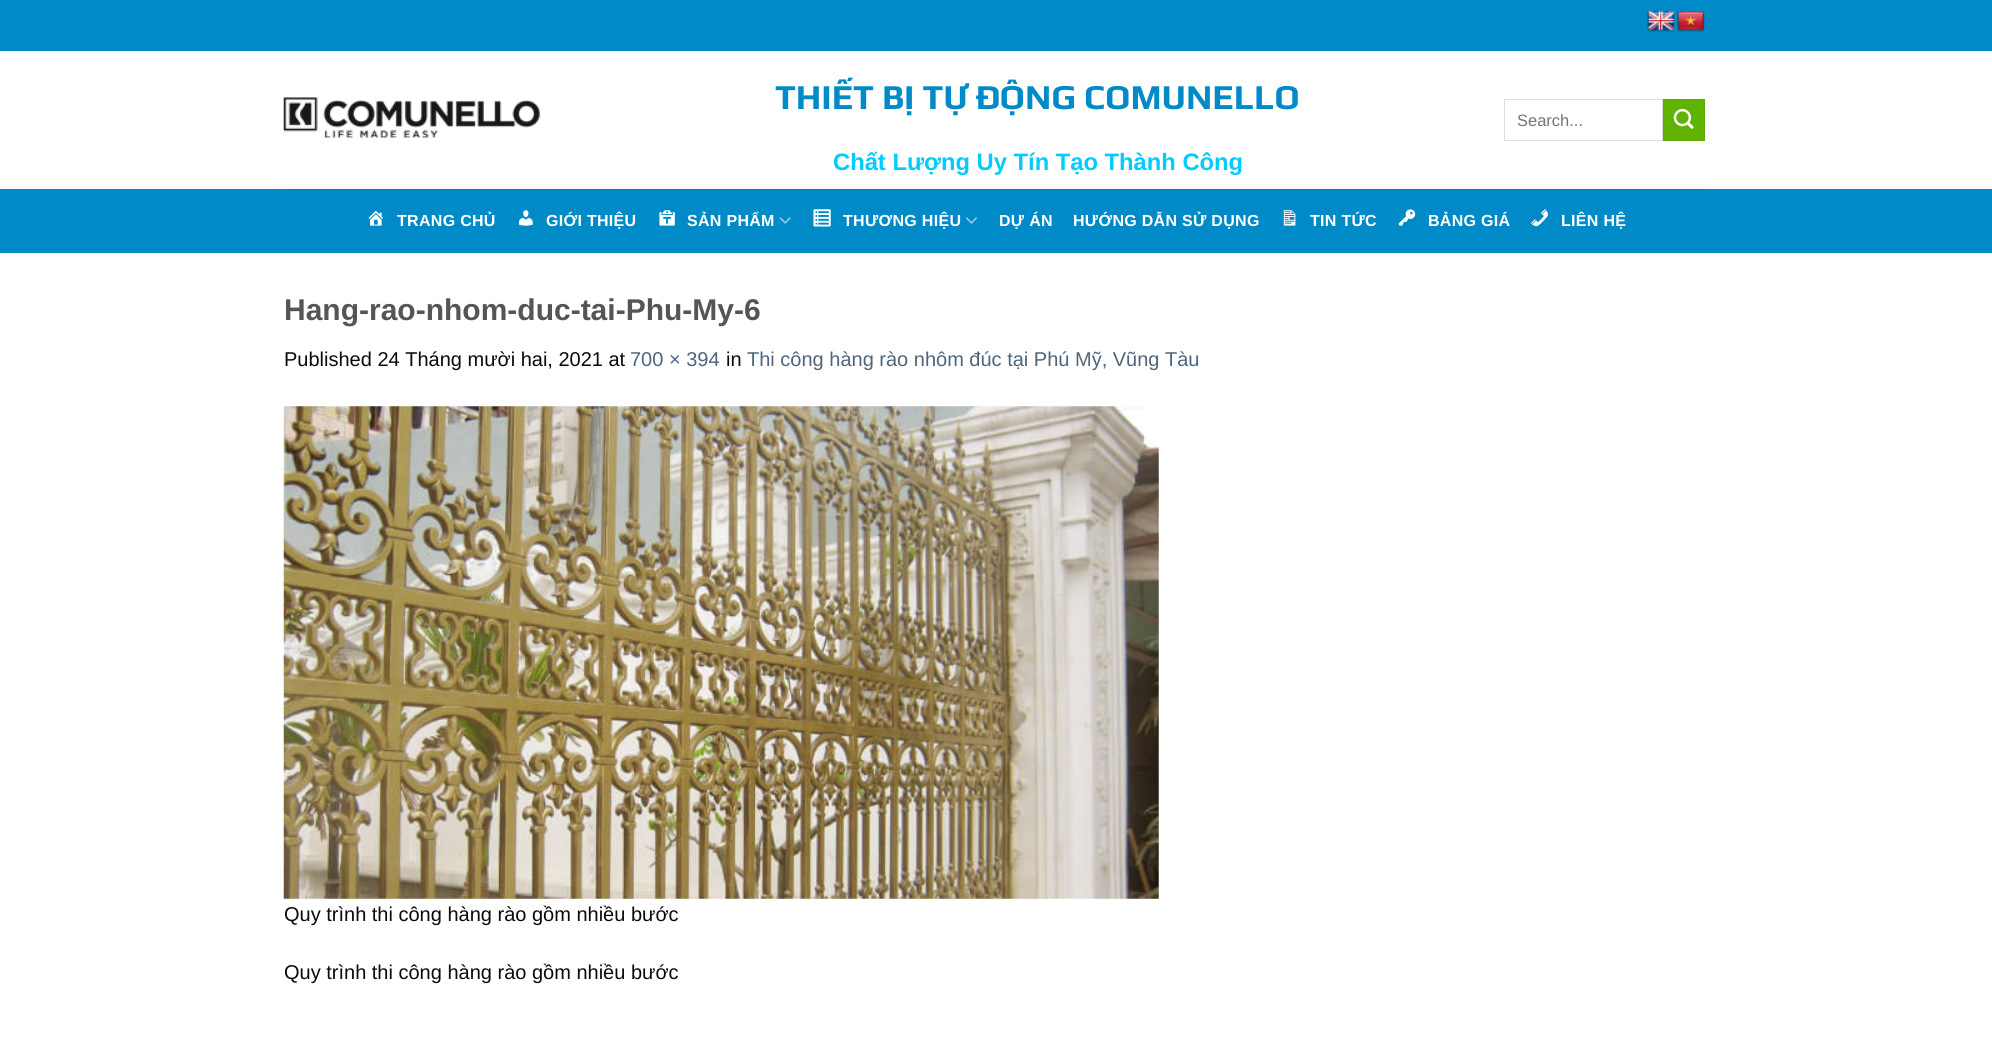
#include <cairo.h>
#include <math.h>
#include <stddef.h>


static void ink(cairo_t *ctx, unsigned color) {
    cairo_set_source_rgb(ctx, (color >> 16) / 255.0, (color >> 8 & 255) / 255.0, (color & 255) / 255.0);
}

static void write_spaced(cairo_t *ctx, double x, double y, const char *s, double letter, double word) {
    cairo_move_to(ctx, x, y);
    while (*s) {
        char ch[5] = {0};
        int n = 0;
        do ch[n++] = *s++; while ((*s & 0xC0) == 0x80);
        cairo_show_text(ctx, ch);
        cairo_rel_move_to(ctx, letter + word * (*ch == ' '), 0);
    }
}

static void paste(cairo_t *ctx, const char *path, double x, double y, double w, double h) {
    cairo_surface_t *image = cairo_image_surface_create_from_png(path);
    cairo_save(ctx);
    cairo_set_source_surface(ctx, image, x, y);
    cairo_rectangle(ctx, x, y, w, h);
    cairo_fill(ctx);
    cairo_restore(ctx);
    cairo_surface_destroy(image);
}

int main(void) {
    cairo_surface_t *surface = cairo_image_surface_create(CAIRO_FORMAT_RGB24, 1992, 1059);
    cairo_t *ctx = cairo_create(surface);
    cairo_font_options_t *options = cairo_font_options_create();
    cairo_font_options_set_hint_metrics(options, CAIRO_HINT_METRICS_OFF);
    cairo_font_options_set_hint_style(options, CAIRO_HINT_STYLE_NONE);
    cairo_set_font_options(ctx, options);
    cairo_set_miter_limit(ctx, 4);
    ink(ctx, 0xFFFFFF);
    cairo_paint(ctx);
    ink(ctx, 0x008AC8);
    cairo_rectangle(ctx, 0, 0, 1992, 51);
    cairo_fill(ctx);
    paste(ctx, "media/1.png", 1647, 11, 28, 22);
    paste(ctx, "media/2.png", 1677, 11, 28, 22);
    paste(ctx, "media/3.png", 283, 97, 258, 41);
    cairo_select_font_face(ctx, "Play", CAIRO_FONT_SLANT_NORMAL, CAIRO_FONT_WEIGHT_BOLD);
    cairo_set_font_size(ctx, 35);
    cairo_move_to(ctx, 775, 109);
    cairo_show_text(ctx, "THIẾT BỊ TỰ ĐỘNG COMUNELLO");
    cairo_select_font_face(ctx, "Liberation Sans", CAIRO_FONT_SLANT_NORMAL, CAIRO_FONT_WEIGHT_BOLD);
    cairo_set_font_size(ctx, 23.75);
    ink(ctx, 0x00CCFF);
    cairo_move_to(ctx, 833, 170);
    cairo_show_text(ctx, "Chất Lượng Uy Tín Tạo Thành Công");
    cairo_rectangle(ctx, 1504.5, 99.5, 158, 41);
    ink(ctx, 0xDDDDDD);
    cairo_set_line_width(ctx, 1);
    cairo_stroke(ctx);
    cairo_select_font_face(ctx, "Liberation Sans", CAIRO_FONT_SLANT_NORMAL, CAIRO_FONT_WEIGHT_NORMAL);
    cairo_set_font_size(ctx, 16.5);
    ink(ctx, 0x757575);
    cairo_move_to(ctx, 1517, 126);
    cairo_show_text(ctx, "Search...");
    ink(ctx, 0x60B301);
    cairo_rectangle(ctx, 1663.5, 99.5, 41, 41);
    cairo_fill_preserve(ctx);
    ink(ctx, 0x5BAA01);
    cairo_stroke(ctx);
    paste(ctx, "media/4.png", 1673, 108, 21, 21);
    ink(ctx, 0x008AC8);
    cairo_rectangle(ctx, 0, 189, 1992, 64);
    cairo_fill(ctx);
    ink(ctx, 0x017DB5);
    cairo_rectangle(ctx, 284, 189, 1425, 1);
    cairo_fill(ctx);
    paste(ctx, "media/5.png", 368, 210, 15, 16);
    cairo_select_font_face(ctx, "Liberation Sans", CAIRO_FONT_SLANT_NORMAL, CAIRO_FONT_WEIGHT_BOLD);
    cairo_set_font_size(ctx, 16);
    ink(ctx, 0xFFFFFF);
    write_spaced(ctx, 397, 226, "TRANG CHỦ", 0.3, 0);
    paste(ctx, "media/6.png", 518, 210, 15, 16);
    write_spaced(ctx, 546, 226, "GIỚI THIỆU", 0.3, 0);
    paste(ctx, "media/7.png", 659, 210, 16, 16);
    write_spaced(ctx, 687, 226, "SẢN PHẨM", 0.3, 0);
    paste(ctx, "media/8.png", 779, 217, 12, 7);
    paste(ctx, "media/9.png", 813, 209, 18, 18);
    write_spaced(ctx, 843, 226, "THƯƠNG HIỆU", 0.3, 0);
    paste(ctx, "media/10.png", 965, 217, 12, 7);
    write_spaced(ctx, 999, 226, "DỰ ÁN", 0.3, 0);
    write_spaced(ctx, 1073, 226, "HƯỚNG DẪN SỬ DỤNG", 0.3, 0);
    paste(ctx, "media/11.png", 1283, 210, 13, 16);
    write_spaced(ctx, 1310, 226, "TIN TỨC", 0.3, 0);
    paste(ctx, "media/12.png", 1398, 209, 18, 17);
    write_spaced(ctx, 1428, 226, "BẢNG GIÁ", 0.3, 0);
    paste(ctx, "media/13.png", 1531, 209, 17, 18);
    write_spaced(ctx, 1561, 226, "LIÊN HỆ", 0.3, 0);
    cairo_set_font_size(ctx, 30);
    ink(ctx, 0x555555);
    cairo_move_to(ctx, 284, 320);
    cairo_show_text(ctx, "Hang-rao-nhom-duc-tai-Phu-My-6");
    cairo_select_font_face(ctx, "Liberation Sans", CAIRO_FONT_SLANT_NORMAL, CAIRO_FONT_WEIGHT_NORMAL);
    cairo_set_font_size(ctx, 20);
    ink(ctx, 0x0A0A0A);
    cairo_move_to(ctx, 284, 366);
    cairo_show_text(ctx, "Published 24 Tháng mười hai, 2021 at");
    ink(ctx, 0x4E657B);
    cairo_move_to(ctx, 630, 366);
    cairo_show_text(ctx, "700 × 394");
    ink(ctx, 0x0A0A0A);
    cairo_move_to(ctx, 726, 366);
    cairo_show_text(ctx, "in");
    ink(ctx, 0x4E657B);
    cairo_move_to(ctx, 747, 366);
    cairo_show_text(ctx, "Thi công hàng rào nhôm đúc tại Phú Mỹ, Vũng Tàu");
    paste(ctx, "media/14.png", 283, 406, 876, 493);
    ink(ctx, 0x0A0A0A);
    cairo_move_to(ctx, 284, 921);
    cairo_show_text(ctx, "Quy trình thi công hàng rào gồm nhiều bước");
    cairo_move_to(ctx, 284, 979);
    cairo_show_text(ctx, "Quy trình thi công hàng rào gồm nhiều bước");
    cairo_surface_write_to_png(surface, "image.png");
    cairo_font_options_destroy(options);
    cairo_destroy(ctx);
    cairo_surface_destroy(surface);
    return 0;
}
